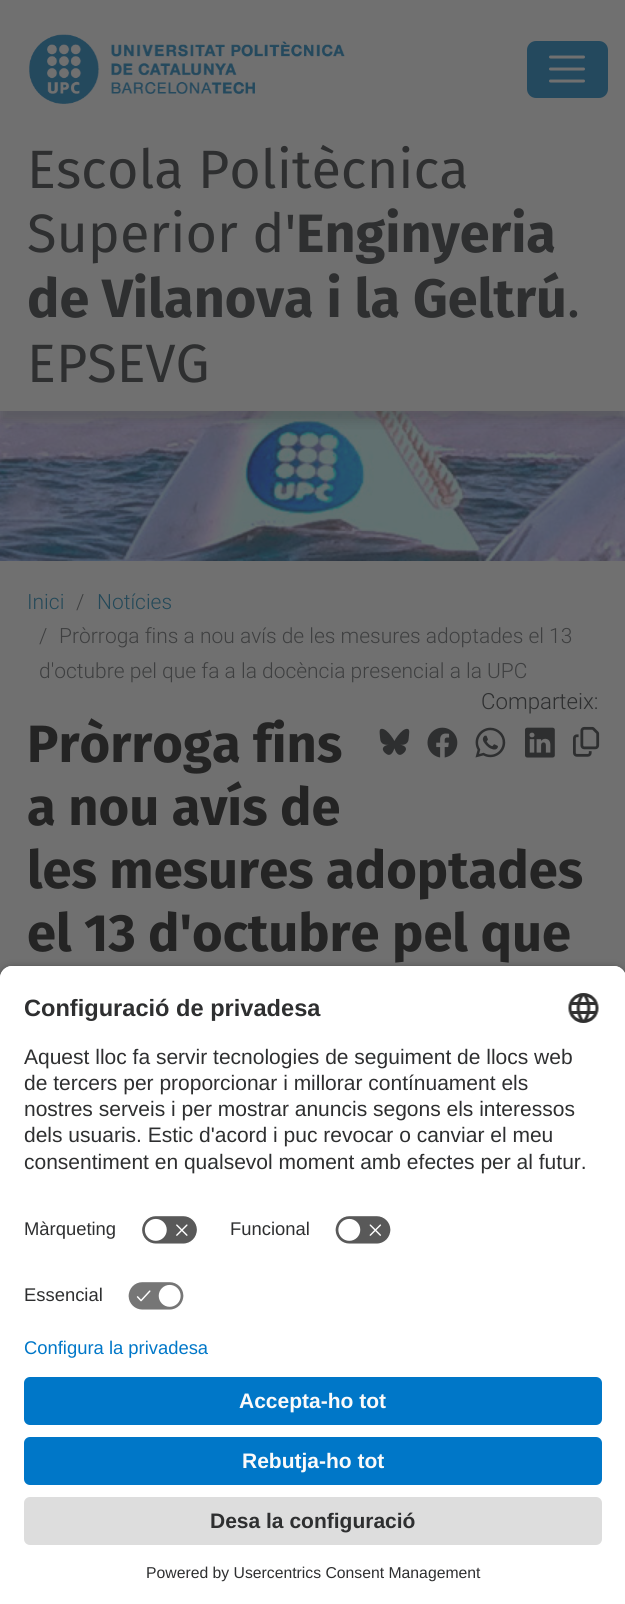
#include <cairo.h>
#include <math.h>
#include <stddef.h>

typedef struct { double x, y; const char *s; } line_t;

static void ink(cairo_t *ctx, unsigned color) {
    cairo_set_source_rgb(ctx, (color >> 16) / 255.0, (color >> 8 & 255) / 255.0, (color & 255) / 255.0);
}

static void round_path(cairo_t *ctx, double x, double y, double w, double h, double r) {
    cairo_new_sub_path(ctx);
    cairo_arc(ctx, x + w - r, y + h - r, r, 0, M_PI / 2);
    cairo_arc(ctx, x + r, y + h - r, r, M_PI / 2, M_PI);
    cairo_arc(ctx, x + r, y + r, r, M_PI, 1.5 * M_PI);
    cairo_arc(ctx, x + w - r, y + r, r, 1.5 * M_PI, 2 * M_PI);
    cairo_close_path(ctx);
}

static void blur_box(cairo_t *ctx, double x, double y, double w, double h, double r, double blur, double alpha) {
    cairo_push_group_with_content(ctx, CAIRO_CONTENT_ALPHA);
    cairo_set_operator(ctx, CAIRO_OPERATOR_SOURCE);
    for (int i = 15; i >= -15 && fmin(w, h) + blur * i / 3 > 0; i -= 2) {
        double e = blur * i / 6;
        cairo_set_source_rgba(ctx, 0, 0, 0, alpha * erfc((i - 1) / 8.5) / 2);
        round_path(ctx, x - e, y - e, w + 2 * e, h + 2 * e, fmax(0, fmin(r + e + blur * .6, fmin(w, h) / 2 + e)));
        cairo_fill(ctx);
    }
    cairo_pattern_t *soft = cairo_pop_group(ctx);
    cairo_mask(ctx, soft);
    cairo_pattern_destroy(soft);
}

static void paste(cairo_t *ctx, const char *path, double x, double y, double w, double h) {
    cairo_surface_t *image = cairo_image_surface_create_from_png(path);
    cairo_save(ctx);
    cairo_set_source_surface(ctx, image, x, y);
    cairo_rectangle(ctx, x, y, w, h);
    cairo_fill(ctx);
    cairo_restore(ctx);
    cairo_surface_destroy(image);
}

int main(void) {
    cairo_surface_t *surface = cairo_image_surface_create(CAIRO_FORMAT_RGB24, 625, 1604);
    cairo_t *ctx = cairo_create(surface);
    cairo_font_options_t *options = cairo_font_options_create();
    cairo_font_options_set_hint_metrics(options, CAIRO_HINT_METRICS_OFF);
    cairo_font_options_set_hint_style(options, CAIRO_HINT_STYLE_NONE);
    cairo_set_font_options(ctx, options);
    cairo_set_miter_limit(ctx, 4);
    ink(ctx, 0x707070);
    cairo_paint(ctx);
    paste(ctx, "media/1.png", 29, 34, 316, 70);
    ink(ctx, 0x24495E);
    round_path(ctx, 527, 41, 81, 57, 9);
    cairo_fill(ctx);
    cairo_new_path(ctx);
    cairo_move_to(ctx, 550.5, 57);
    cairo_line_to(ctx, 583.5, 57);
    cairo_move_to(ctx, 550.5, 69);
    cairo_line_to(ctx, 583.5, 69);
    cairo_move_to(ctx, 550.5, 81);
    cairo_line_to(ctx, 583.5, 81);
    ink(ctx, 0x707070);
    cairo_set_line_width(ctx, 3);
    cairo_set_line_cap(ctx, CAIRO_LINE_CAP_ROUND);
    cairo_stroke(ctx);
    paste(ctx, "media/2.png", 0, 411, 625, 150);
    cairo_save(ctx);
    cairo_rectangle(ctx, 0, 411, 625, 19);
    cairo_clip(ctx);
    ink(ctx, 0x242424);
    blur_box(ctx, 0, 149, 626, 273, 0, 6, 0.2);
    cairo_restore(ctx);
    cairo_select_font_face(ctx, "Fira Sans", CAIRO_FONT_SLANT_NORMAL, CAIRO_FONT_WEIGHT_NORMAL);
    cairo_set_font_size(ctx, 54);
    ink(ctx, 0x2E2F30);
    cairo_move_to(ctx, 27, 188);
    cairo_show_text(ctx, "Escola Politècnica");
    cairo_move_to(ctx, 27, 252);
    cairo_show_text(ctx, "Superior d'");
    cairo_select_font_face(ctx, "Fira Sans", CAIRO_FONT_SLANT_NORMAL, CAIRO_FONT_WEIGHT_BOLD);
    cairo_move_to(ctx, 296, 252);
    cairo_show_text(ctx, "Enginyeria");
    cairo_move_to(ctx, 27, 317);
    cairo_show_text(ctx, "de Vilanova i la Geltrú");
    cairo_select_font_face(ctx, "Fira Sans", CAIRO_FONT_SLANT_NORMAL, CAIRO_FONT_WEIGHT_NORMAL);
    cairo_move_to(ctx, 567, 317);
    cairo_show_text(ctx, ".");
    cairo_move_to(ctx, 27, 382);
    cairo_show_text(ctx, "EPSEVG");
    cairo_select_font_face(ctx, "Roboto Light", CAIRO_FONT_SLANT_NORMAL, CAIRO_FONT_WEIGHT_NORMAL);
    cairo_set_font_size(ctx, 21);
    ink(ctx, 0x244959);
    cairo_move_to(ctx, 27, 609);
    cairo_show_text(ctx, "Inici");
    ink(ctx, 0x3E3F40);
    cairo_move_to(ctx, 76, 609);
    cairo_show_text(ctx, "/");
    ink(ctx, 0x244959);
    cairo_move_to(ctx, 97, 609);
    cairo_show_text(ctx, "Notícies");
    ink(ctx, 0x3E3F40);
    {
        static const line_t items[] = {
            {39, 643, "/"},
            {59, 643, "Pròrroga fins a nou avís de les mesures adoptades el 13"},
            {39, 678, "d'octubre pel que fa a la docència presencial a la UPC"},
        };
        for (size_t i = 0; i < sizeof items / sizeof *items; i++) {
            cairo_move_to(ctx, items[i].x, items[i].y);
            cairo_show_text(ctx, items[i].s);
        }
    }
    cairo_set_font_size(ctx, 22.25);
    ink(ctx, 0x2E2F30);
    cairo_move_to(ctx, 481, 709);
    cairo_show_text(ctx, "Comparteix:");
    paste(ctx, "media/3.png", 379, 728, 31, 27);
    paste(ctx, "media/4.png", 427, 727, 31, 31);
    paste(ctx, "media/5.png", 475, 727, 31, 31);
    paste(ctx, "media/6.png", 525, 727, 30, 31);
    paste(ctx, "media/7.png", 573, 726, 27, 31);
    cairo_select_font_face(ctx, "Fira Sans", CAIRO_FONT_SLANT_NORMAL, CAIRO_FONT_WEIGHT_BOLD);
    cairo_set_font_size(ctx, 52.5);
    ink(ctx, 0x242424);
    {
        static const line_t items[] = {
            {27, 762, "Pròrroga fins"},
            {27, 825, "a nou avís de"},
            {27, 888, "les mesures adoptades"},
            {27, 951, "el 13 d'octubre pel que"},
        };
        for (size_t i = 0; i < sizeof items / sizeof *items; i++) {
            cairo_move_to(ctx, items[i].x, items[i].y);
            cairo_show_text(ctx, items[i].s);
        }
    }
    ink(ctx, 0x000000);
    blur_box(ctx, 0, 971, 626, 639, 12, 5, 0.8);
    ink(ctx, 0xFFFFFF);
    cairo_new_path(ctx);
    cairo_move_to(ctx, 12, 966);
    cairo_line_to(ctx, 614, 966);
    cairo_curve_to(ctx, 620.5, 966, 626, 971.5, 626, 978);
    cairo_line_to(ctx, 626, 1338);
    cairo_line_to(ctx, 0, 1338);
    cairo_line_to(ctx, 0, 978);
    cairo_curve_to(ctx, 0, 971.5, 5.5, 966, 12, 966);
    cairo_close_path(ctx);
    cairo_fill(ctx);
    cairo_new_path(ctx);
    cairo_move_to(ctx, 12, 966);
    cairo_line_to(ctx, 614, 966);
    cairo_curve_to(ctx, 620.5, 966, 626, 971.5, 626, 978);
    cairo_line_to(ctx, 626, 1206);
    cairo_line_to(ctx, 0, 1206);
    cairo_line_to(ctx, 0, 978);
    cairo_curve_to(ctx, 0, 971.5, 5.5, 966, 12, 966);
    cairo_close_path(ctx);
    cairo_fill(ctx);
    cairo_select_font_face(ctx, "Liberation Sans", CAIRO_FONT_SLANT_NORMAL, CAIRO_FONT_WEIGHT_BOLD);
    cairo_set_font_size(ctx, 23.6);
    ink(ctx, 0x2E2F30);
    cairo_move_to(ctx, 24, 1016);
    cairo_show_text(ctx, "Configuració de privadesa");
    paste(ctx, "media/8.png", 568, 993, 31, 30);
    cairo_select_font_face(ctx, "Liberation Sans", CAIRO_FONT_SLANT_NORMAL, CAIRO_FONT_WEIGHT_NORMAL);
    cairo_set_font_size(ctx, 21);
    {
        static const line_t items[] = {
            {24, 1064, "Aquest lloc fa servir tecnologies de seguiment de llocs web"},
            {24, 1090, "de tercers per proporcionar i millorar contínuament els"},
            {24, 1116, "nostres serveis i per mostrar anuncis segons els interessos"},
            {24, 1142, "dels usuaris. Estic d'acord i puc revocar o canviar el meu"},
            {24, 1169, "consentiment en qualsevol moment amb efectes per al futur."},
        };
        for (size_t i = 0; i < sizeof items / sizeof *items; i++) {
            cairo_move_to(ctx, items[i].x, items[i].y);
            cairo_show_text(ctx, items[i].s);
        }
    }
    cairo_set_font_size(ctx, 18.4);
    cairo_move_to(ctx, 24, 1235);
    cairo_show_text(ctx, "Màrqueting");
    paste(ctx, "media/9.png", 142, 1216, 55, 28);
    cairo_move_to(ctx, 230, 1235);
    cairo_show_text(ctx, "Funcional");
    paste(ctx, "media/10.png", 335, 1216, 56, 28);
    cairo_move_to(ctx, 24, 1301);
    cairo_show_text(ctx, "Essencial");
    paste(ctx, "media/11.png", 128, 1282, 56, 28);
    ink(ctx, 0xFFFFFF);
    cairo_rectangle(ctx, 0, 1338, 625, 266);
    cairo_fill(ctx);
    ink(ctx, 0x0077C8);
    cairo_move_to(ctx, 24, 1354);
    cairo_show_text(ctx, "Configura la privadesa");
    round_path(ctx, 24, 1377, 578, 48, 6);
    cairo_fill(ctx);
    cairo_select_font_face(ctx, "Liberation Sans", CAIRO_FONT_SLANT_NORMAL, CAIRO_FONT_WEIGHT_BOLD);
    cairo_set_font_size(ctx, 21);
    ink(ctx, 0xFAFAFA);
    cairo_move_to(ctx, 239, 1408);
    cairo_show_text(ctx, "Accepta-ho tot");
    ink(ctx, 0x0077C8);
    round_path(ctx, 24, 1437, 578, 48, 6);
    cairo_fill(ctx);
    ink(ctx, 0xFAFAFA);
    cairo_move_to(ctx, 242, 1468);
    cairo_show_text(ctx, "Rebutja-ho tot");
    ink(ctx, 0xDDDDDD);
    round_path(ctx, 24, 1497, 578, 48, 6);
    cairo_fill(ctx);
    ink(ctx, 0x2E2F30);
    cairo_move_to(ctx, 210, 1528);
    cairo_show_text(ctx, "Desa la configuració");
    cairo_select_font_face(ctx, "Liberation Sans", CAIRO_FONT_SLANT_NORMAL, CAIRO_FONT_WEIGHT_NORMAL);
    cairo_set_font_size(ctx, 15.75);
    cairo_move_to(ctx, 146, 1578);
    cairo_show_text(ctx, "Powered by Usercentrics Consent Management");
    cairo_surface_write_to_png(surface, "image.png");
    cairo_font_options_destroy(options);
    cairo_destroy(ctx);
    cairo_surface_destroy(surface);
    return 0;
}
